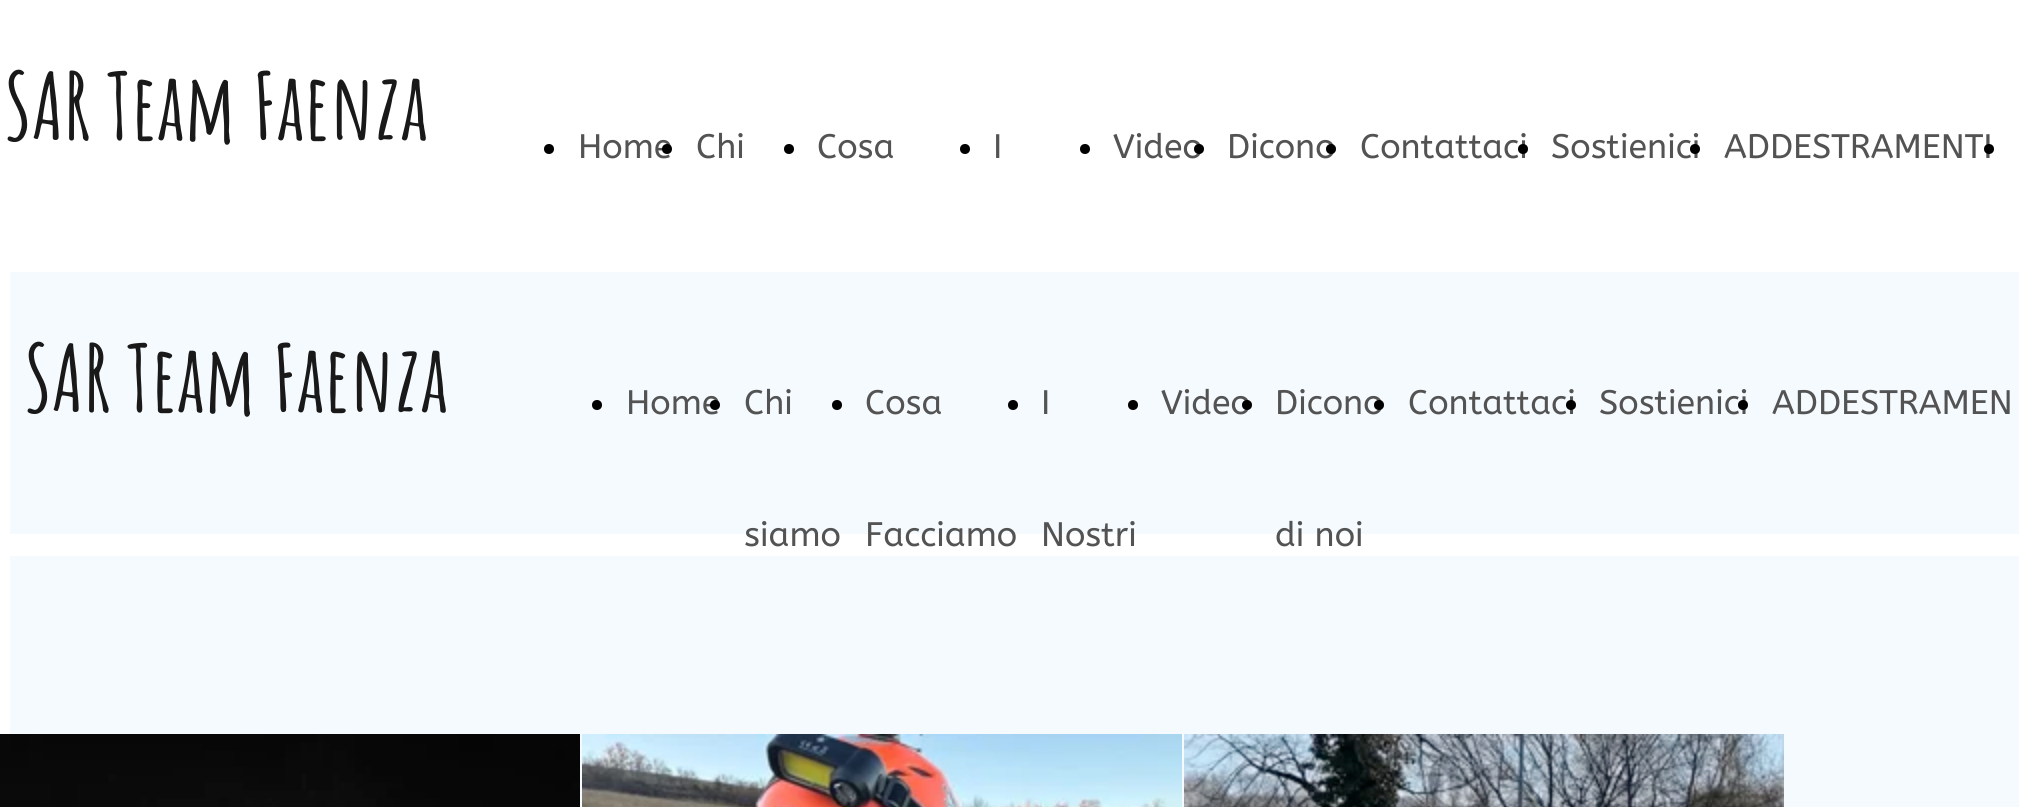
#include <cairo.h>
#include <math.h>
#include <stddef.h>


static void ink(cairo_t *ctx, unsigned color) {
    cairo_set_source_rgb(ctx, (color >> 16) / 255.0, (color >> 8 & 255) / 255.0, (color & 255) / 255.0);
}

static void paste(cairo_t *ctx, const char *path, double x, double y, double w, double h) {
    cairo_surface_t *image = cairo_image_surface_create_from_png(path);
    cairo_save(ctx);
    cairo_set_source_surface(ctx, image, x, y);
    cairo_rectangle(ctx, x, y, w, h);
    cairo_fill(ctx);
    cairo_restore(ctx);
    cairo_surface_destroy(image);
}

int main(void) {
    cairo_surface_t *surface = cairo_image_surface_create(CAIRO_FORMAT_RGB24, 2019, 807);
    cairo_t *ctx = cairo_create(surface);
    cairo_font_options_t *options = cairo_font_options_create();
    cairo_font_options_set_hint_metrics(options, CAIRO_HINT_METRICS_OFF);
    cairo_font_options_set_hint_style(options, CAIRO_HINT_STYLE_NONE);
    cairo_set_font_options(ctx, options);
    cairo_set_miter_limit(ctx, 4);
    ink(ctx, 0xFFFFFF);
    cairo_paint(ctx);
    cairo_select_font_face(ctx, "Amatic SC", CAIRO_FONT_SLANT_NORMAL, CAIRO_FONT_WEIGHT_BOLD);
    cairo_set_font_size(ctx, 91.5);
    ink(ctx, 0x1A1919);
    cairo_move_to(ctx, 4, 140);
    cairo_show_text(ctx, "SAR Team Faenza");
    ink(ctx, 0x000000);
    cairo_new_path(ctx);
    cairo_arc(ctx, 549, 149, 5, 0, 2 * M_PI);
    cairo_fill(ctx);
    cairo_select_font_face(ctx, "ABeeZee", CAIRO_FONT_SLANT_NORMAL, CAIRO_FONT_WEIGHT_NORMAL);
    cairo_set_font_size(ctx, 34);
    ink(ctx, 0x535353);
    cairo_move_to(ctx, 578, 158);
    cairo_show_text(ctx, "Home");
    ink(ctx, 0x000000);
    cairo_new_path(ctx);
    cairo_arc(ctx, 667, 149, 5, 0, 2 * M_PI);
    cairo_fill(ctx);
    ink(ctx, 0x535353);
    cairo_move_to(ctx, 696, 158);
    cairo_show_text(ctx, "Chi");
    ink(ctx, 0x000000);
    cairo_new_path(ctx);
    cairo_arc(ctx, 789, 149, 5, 0, 2 * M_PI);
    cairo_fill(ctx);
    ink(ctx, 0x535353);
    cairo_move_to(ctx, 817, 158);
    cairo_show_text(ctx, "Cosa");
    ink(ctx, 0x000000);
    cairo_new_path(ctx);
    cairo_arc(ctx, 965, 149, 5, 0, 2 * M_PI);
    cairo_fill(ctx);
    ink(ctx, 0x535353);
    cairo_move_to(ctx, 993, 158);
    cairo_show_text(ctx, "I");
    ink(ctx, 0x000000);
    cairo_new_path(ctx);
    cairo_arc(ctx, 1085, 149, 5, 0, 2 * M_PI);
    cairo_fill(ctx);
    ink(ctx, 0x535353);
    cairo_move_to(ctx, 1113, 158);
    cairo_show_text(ctx, "Video");
    ink(ctx, 0x000000);
    cairo_new_path(ctx);
    cairo_arc(ctx, 1199, 149, 5, 0, 2 * M_PI);
    cairo_fill(ctx);
    ink(ctx, 0x535353);
    cairo_move_to(ctx, 1227, 158);
    cairo_show_text(ctx, "Dicono");
    ink(ctx, 0x000000);
    cairo_new_path(ctx);
    cairo_arc(ctx, 1331, 149, 5, 0, 2 * M_PI);
    cairo_fill(ctx);
    ink(ctx, 0x535353);
    cairo_move_to(ctx, 1360, 158);
    cairo_show_text(ctx, "Contattaci");
    ink(ctx, 0x000000);
    cairo_new_path(ctx);
    cairo_arc(ctx, 1523, 149, 5, 0, 2 * M_PI);
    cairo_fill(ctx);
    ink(ctx, 0x535353);
    cairo_move_to(ctx, 1551, 158);
    cairo_show_text(ctx, "Sostienici");
    ink(ctx, 0x000000);
    cairo_new_path(ctx);
    cairo_arc(ctx, 1695, 149, 5, 0, 2 * M_PI);
    cairo_fill(ctx);
    ink(ctx, 0x535353);
    cairo_move_to(ctx, 1724, 158);
    cairo_show_text(ctx, "ADDESTRAMENTI");
    ink(ctx, 0x000000);
    cairo_new_path(ctx);
    cairo_arc(ctx, 1989, 149, 5, 0, 2 * M_PI);
    cairo_fill(ctx);
    ink(ctx, 0xF5FAFE);
    cairo_rectangle(ctx, 10, 272, 2009, 262);
    cairo_fill(ctx);
    cairo_select_font_face(ctx, "Amatic SC", CAIRO_FONT_SLANT_NORMAL, CAIRO_FONT_WEIGHT_BOLD);
    cairo_set_font_size(ctx, 91.5);
    ink(ctx, 0x1A1919);
    cairo_move_to(ctx, 24, 412);
    cairo_show_text(ctx, "SAR Team Faenza");
    ink(ctx, 0x000000);
    cairo_new_path(ctx);
    cairo_arc(ctx, 597, 405, 5, 0, 2 * M_PI);
    cairo_fill(ctx);
    cairo_select_font_face(ctx, "ABeeZee", CAIRO_FONT_SLANT_NORMAL, CAIRO_FONT_WEIGHT_NORMAL);
    cairo_set_font_size(ctx, 34);
    ink(ctx, 0x535353);
    cairo_move_to(ctx, 626, 414);
    cairo_show_text(ctx, "Home");
    ink(ctx, 0x000000);
    cairo_new_path(ctx);
    cairo_arc(ctx, 715, 405, 5, 0, 2 * M_PI);
    cairo_fill(ctx);
    ink(ctx, 0x535353);
    cairo_move_to(ctx, 744, 414);
    cairo_show_text(ctx, "Chi");
    cairo_move_to(ctx, 744, 546);
    cairo_show_text(ctx, "siamo");
    ink(ctx, 0x000000);
    cairo_new_path(ctx);
    cairo_arc(ctx, 837, 405, 5, 0, 2 * M_PI);
    cairo_fill(ctx);
    ink(ctx, 0x535353);
    cairo_move_to(ctx, 865, 414);
    cairo_show_text(ctx, "Cosa");
    cairo_move_to(ctx, 865, 546);
    cairo_show_text(ctx, "Facciamo");
    ink(ctx, 0x000000);
    cairo_new_path(ctx);
    cairo_arc(ctx, 1013, 405, 5, 0, 2 * M_PI);
    cairo_fill(ctx);
    ink(ctx, 0x535353);
    cairo_move_to(ctx, 1041, 414);
    cairo_show_text(ctx, "I");
    cairo_move_to(ctx, 1041, 546);
    cairo_show_text(ctx, "Nostri");
    ink(ctx, 0x000000);
    cairo_new_path(ctx);
    cairo_arc(ctx, 1133, 405, 5, 0, 2 * M_PI);
    cairo_fill(ctx);
    ink(ctx, 0x535353);
    cairo_move_to(ctx, 1161, 414);
    cairo_show_text(ctx, "Video");
    ink(ctx, 0x000000);
    cairo_new_path(ctx);
    cairo_arc(ctx, 1247, 405, 5, 0, 2 * M_PI);
    cairo_fill(ctx);
    ink(ctx, 0x535353);
    cairo_move_to(ctx, 1275, 414);
    cairo_show_text(ctx, "Dicono");
    cairo_move_to(ctx, 1275, 546);
    cairo_show_text(ctx, "di noi");
    ink(ctx, 0x000000);
    cairo_new_path(ctx);
    cairo_arc(ctx, 1379, 405, 5, 0, 2 * M_PI);
    cairo_fill(ctx);
    ink(ctx, 0x535353);
    cairo_move_to(ctx, 1408, 414);
    cairo_show_text(ctx, "Contattaci");
    ink(ctx, 0x000000);
    cairo_new_path(ctx);
    cairo_arc(ctx, 1571, 405, 5, 0, 2 * M_PI);
    cairo_fill(ctx);
    ink(ctx, 0x535353);
    cairo_move_to(ctx, 1599, 414);
    cairo_show_text(ctx, "Sostienici");
    ink(ctx, 0x000000);
    cairo_new_path(ctx);
    cairo_arc(ctx, 1743, 405, 5, 0, 2 * M_PI);
    cairo_fill(ctx);
    ink(ctx, 0x535353);
    cairo_move_to(ctx, 1772, 414);
    cairo_show_text(ctx, "ADDESTRAMEN");
    ink(ctx, 0xF5FAFE);
    cairo_rectangle(ctx, 10, 556, 2009, 251);
    cairo_fill(ctx);
    paste(ctx, "media/1.png", 0, 734, 580, 73);
    paste(ctx, "media/2.png", 582, 734, 600, 73);
    paste(ctx, "media/3.png", 1184, 734, 600, 73);
    cairo_surface_write_to_png(surface, "image.png");
    cairo_font_options_destroy(options);
    cairo_destroy(ctx);
    cairo_surface_destroy(surface);
    return 0;
}
